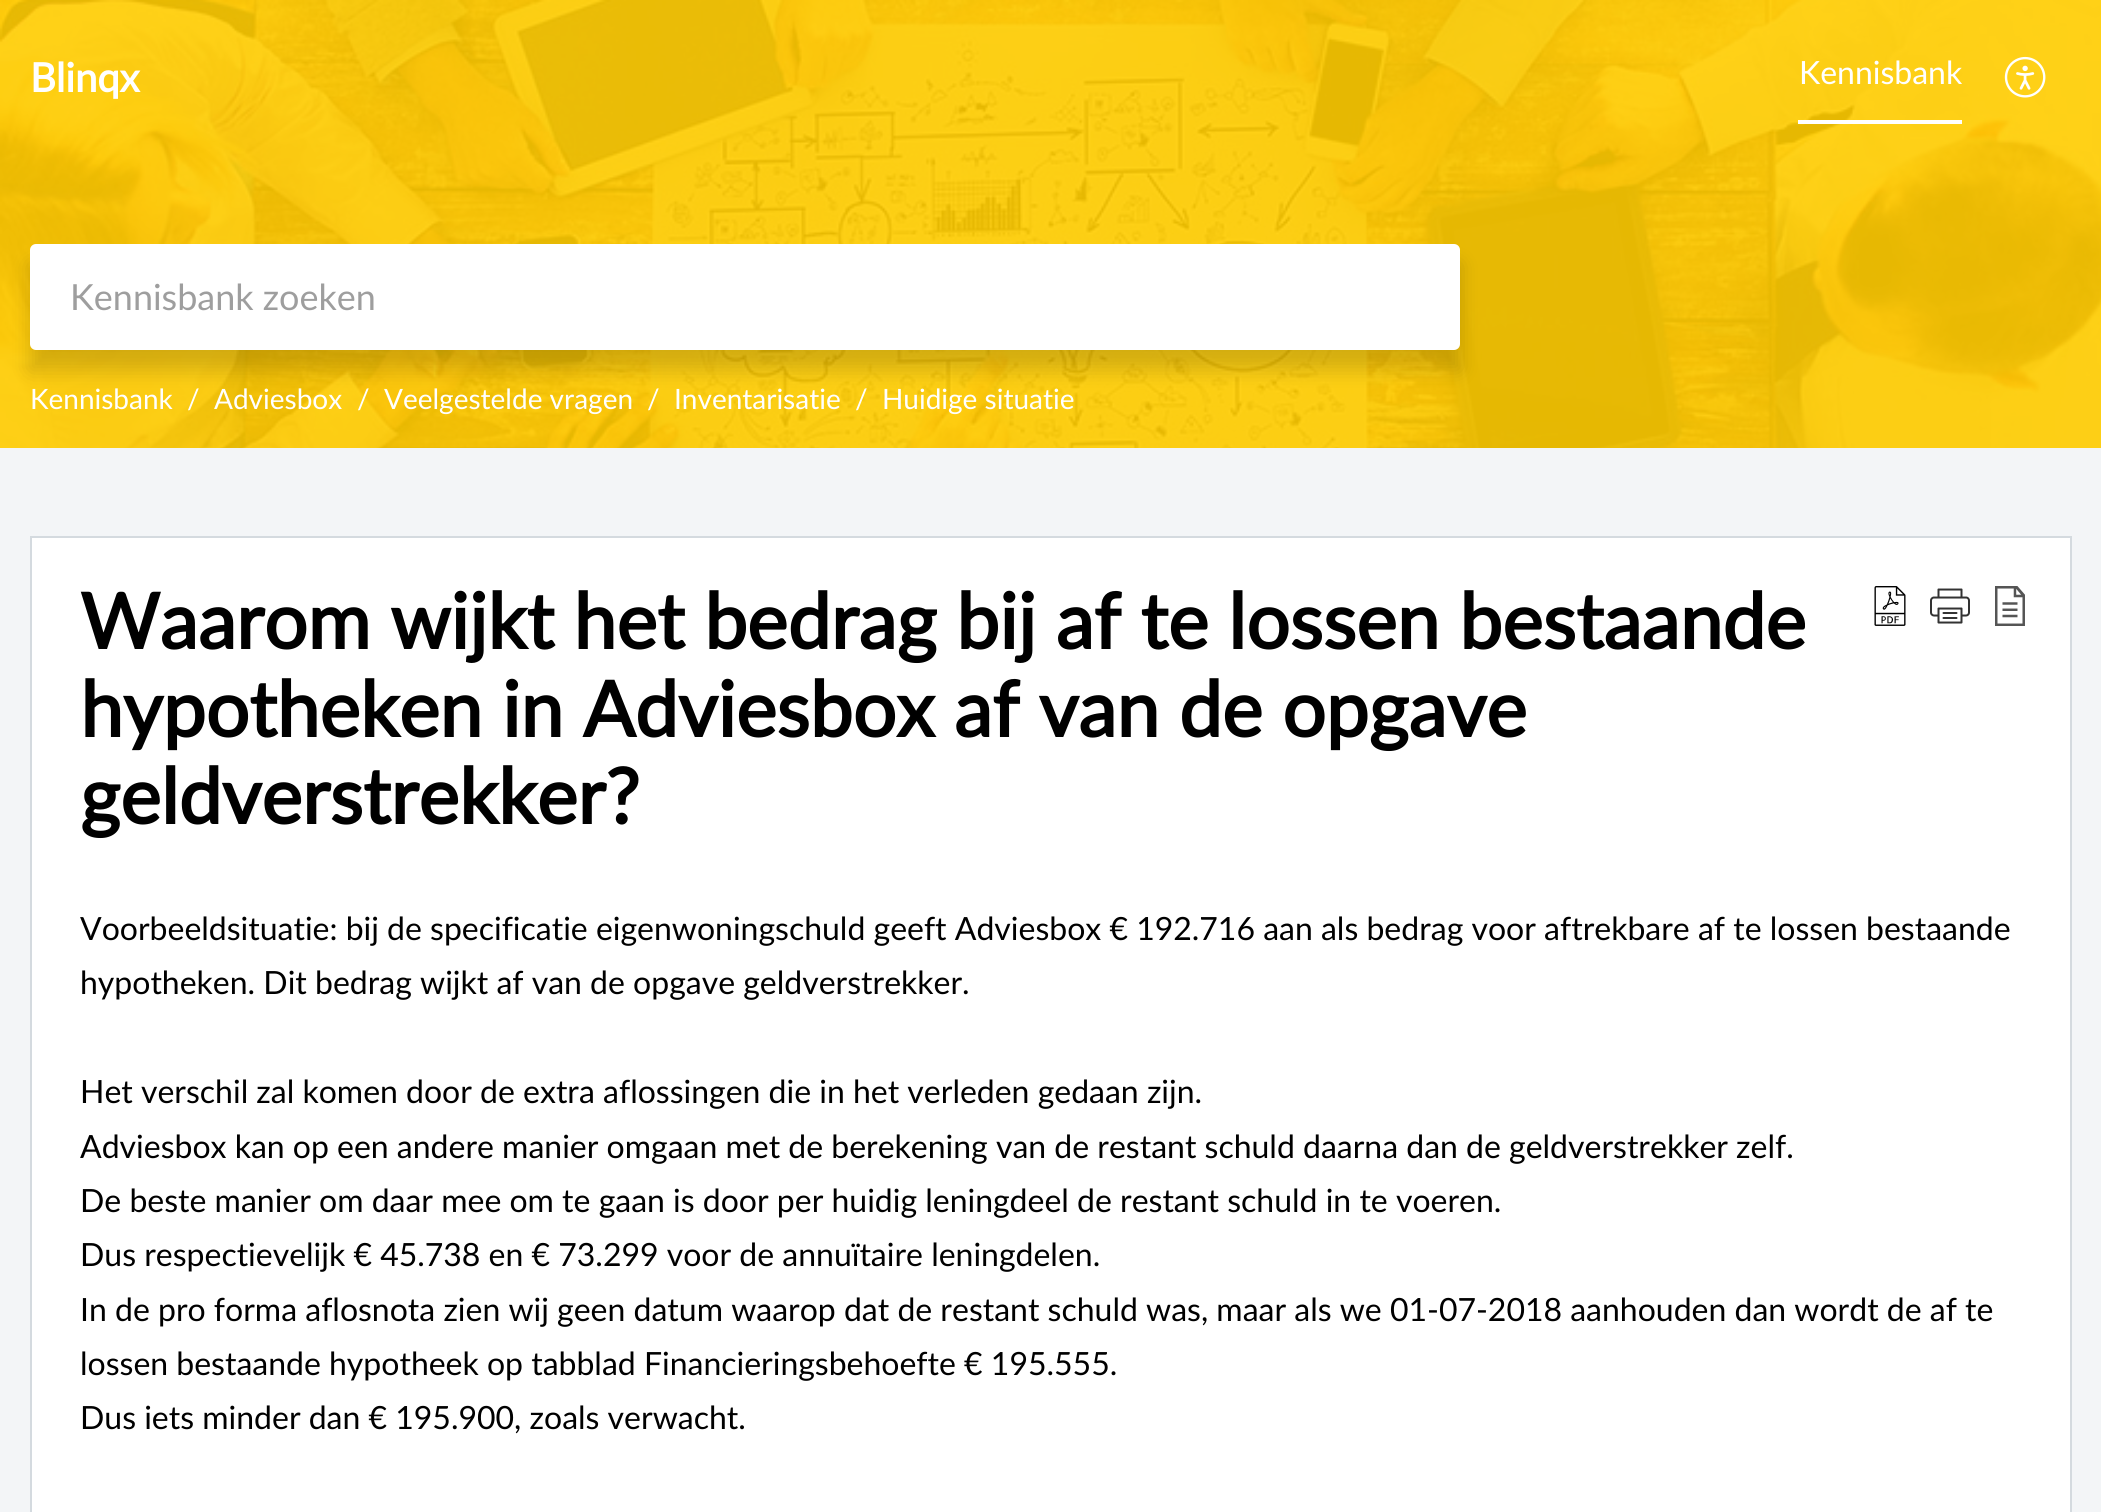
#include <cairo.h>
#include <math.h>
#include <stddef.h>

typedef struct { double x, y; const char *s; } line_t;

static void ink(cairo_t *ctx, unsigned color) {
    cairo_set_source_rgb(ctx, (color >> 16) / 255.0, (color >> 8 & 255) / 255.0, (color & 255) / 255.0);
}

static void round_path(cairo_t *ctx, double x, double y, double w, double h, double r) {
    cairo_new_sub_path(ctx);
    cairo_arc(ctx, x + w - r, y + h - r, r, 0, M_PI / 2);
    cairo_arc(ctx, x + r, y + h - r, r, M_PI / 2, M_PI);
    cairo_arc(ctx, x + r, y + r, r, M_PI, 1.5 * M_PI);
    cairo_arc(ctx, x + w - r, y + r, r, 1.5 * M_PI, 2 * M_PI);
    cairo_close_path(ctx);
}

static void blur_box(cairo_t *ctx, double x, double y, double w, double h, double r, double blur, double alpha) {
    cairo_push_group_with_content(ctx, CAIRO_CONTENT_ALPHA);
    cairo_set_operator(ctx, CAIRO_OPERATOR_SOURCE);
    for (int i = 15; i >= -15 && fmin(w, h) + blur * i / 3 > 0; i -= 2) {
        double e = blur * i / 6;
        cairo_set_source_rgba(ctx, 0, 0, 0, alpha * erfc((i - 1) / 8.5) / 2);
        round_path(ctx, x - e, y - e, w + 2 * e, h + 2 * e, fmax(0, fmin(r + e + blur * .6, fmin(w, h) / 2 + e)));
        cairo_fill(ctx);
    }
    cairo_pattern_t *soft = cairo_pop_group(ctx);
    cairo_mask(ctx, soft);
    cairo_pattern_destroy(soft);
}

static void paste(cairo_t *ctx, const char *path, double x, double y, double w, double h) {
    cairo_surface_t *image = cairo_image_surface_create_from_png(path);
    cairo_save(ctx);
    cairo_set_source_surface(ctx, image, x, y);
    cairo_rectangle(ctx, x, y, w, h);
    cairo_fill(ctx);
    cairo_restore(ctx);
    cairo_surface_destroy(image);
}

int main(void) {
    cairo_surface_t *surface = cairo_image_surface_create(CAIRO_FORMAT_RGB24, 2101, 1512);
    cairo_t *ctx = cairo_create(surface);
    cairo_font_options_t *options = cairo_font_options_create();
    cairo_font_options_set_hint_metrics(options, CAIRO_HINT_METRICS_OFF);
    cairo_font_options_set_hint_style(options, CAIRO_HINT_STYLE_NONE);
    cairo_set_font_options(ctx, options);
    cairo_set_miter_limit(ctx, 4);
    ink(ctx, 0xF3F5F7);
    cairo_paint(ctx);
    paste(ctx, "media/1.png", 0, 0, 2101, 448);
    cairo_select_font_face(ctx, "Lato", CAIRO_FONT_SLANT_NORMAL, CAIRO_FONT_WEIGHT_BOLD);
    cairo_set_font_size(ctx, 40);
    ink(ctx, 0xFFFFFF);
    cairo_move_to(ctx, 30, 92);
    cairo_show_text(ctx, "Blinqx");
    cairo_rectangle(ctx, 1798, 120, 164, 4);
    cairo_fill(ctx);
    cairo_select_font_face(ctx, "Lato", CAIRO_FONT_SLANT_NORMAL, CAIRO_FONT_WEIGHT_NORMAL);
    cairo_set_font_size(ctx, 32);
    cairo_move_to(ctx, 1799, 84);
    cairo_show_text(ctx, "Kennisbank");
    paste(ctx, "media/2.png", 2004, 56, 42, 42);
    ink(ctx, 0x000000);
    blur_box(ctx, 30, 264, 1430, 106, 0, 10, 0.16);
    ink(ctx, 0xFFFFFF);
    round_path(ctx, 30, 244, 1430, 106, 6);
    cairo_fill(ctx);
    cairo_set_font_size(ctx, 36);
    ink(ctx, 0x9E9E9E);
    cairo_move_to(ctx, 70, 310);
    cairo_show_text(ctx, "Kennisbank zoeken");
    cairo_set_font_size(ctx, 28);
    ink(ctx, 0xFFFFFF);
    {
        static const line_t items[] = {
            {30, 409, "Kennisbank"},
            {187, 409, "/"},
            {214, 409, "Adviesbox"},
            {357, 409, "/"},
            {384, 409, "Veelgestelde vragen"},
            {647, 409, "/"},
            {674, 409, "Inventarisatie"},
            {855, 409, "/"},
            {882, 409, "Huidige situatie"},
        };
        for (size_t i = 0; i < sizeof items / sizeof *items; i++) {
            cairo_move_to(ctx, items[i].x, items[i].y);
            cairo_show_text(ctx, items[i].s);
        }
    }
    cairo_rectangle(ctx, 31, 537, 2040, 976);
    cairo_fill_preserve(ctx);
    ink(ctx, 0xD4DADF);
    cairo_stroke(ctx);
    cairo_select_font_face(ctx, "Lato", CAIRO_FONT_SLANT_NORMAL, CAIRO_FONT_WEIGHT_BOLD);
    cairo_set_font_size(ctx, 76.8);
    ink(ctx, 0x000000);
    {
        static const line_t items[] = {
            {80, 649, "Waarom wijkt het bedrag bij af te lossen bestaande"},
            {80, 737, "hypotheken in Adviesbox af van de opgave"},
            {80, 824, "geldverstrekker?"},
        };
        for (size_t i = 0; i < sizeof items / sizeof *items; i++) {
            cairo_move_to(ctx, items[i].x, items[i].y);
            cairo_show_text(ctx, items[i].s);
        }
    }
    paste(ctx, "media/3.png", 1874, 586, 32, 40);
    paste(ctx, "media/4.png", 1930, 588, 40, 36);
    paste(ctx, "media/5.png", 1995, 586, 30, 40);
    cairo_select_font_face(ctx, "Lato", CAIRO_FONT_SLANT_NORMAL, CAIRO_FONT_WEIGHT_NORMAL);
    cairo_set_font_size(ctx, 32);
    {
        static const line_t items[] = {
            {80, 940, "Voorbeeldsituatie: bij de specificatie eigenwoningschuld geeft Adviesbox € 192.716 aan als bedrag voor aftrekbare af te lossen bestaande"},
            {80, 994, "hypotheken. Dit bedrag wijkt af van de opgave geldverstrekker."},
            {80, 1103, "Het verschil zal komen door de extra aflossingen die in het verleden gedaan zijn."},
            {80, 1158, "Adviesbox kan op een andere manier omgaan met de berekening van de restant schuld daarna dan de geldverstrekker zelf."},
            {80, 1212, "De beste manier om daar mee om te gaan is door per huidig leningdeel de restant schuld in te voeren."},
            {80, 1266, "Dus respectievelijk € 45.738 en € 73.299 voor de annuïtaire leningdelen."},
            {80, 1321, "In de pro forma aflosnota zien wij geen datum waarop dat de restant schuld was, maar als we 01-07-2018 aanhouden dan wordt de af te"},
            {80, 1375, "lossen bestaande hypotheek op tabblad Financieringsbehoefte € 195.555."},
            {80, 1429, "Dus iets minder dan € 195.900, zoals verwacht."},
        };
        for (size_t i = 0; i < sizeof items / sizeof *items; i++) {
            cairo_move_to(ctx, items[i].x, items[i].y);
            cairo_show_text(ctx, items[i].s);
        }
    }
    cairo_surface_write_to_png(surface, "image.png");
    cairo_font_options_destroy(options);
    cairo_destroy(ctx);
    cairo_surface_destroy(surface);
    return 0;
}
